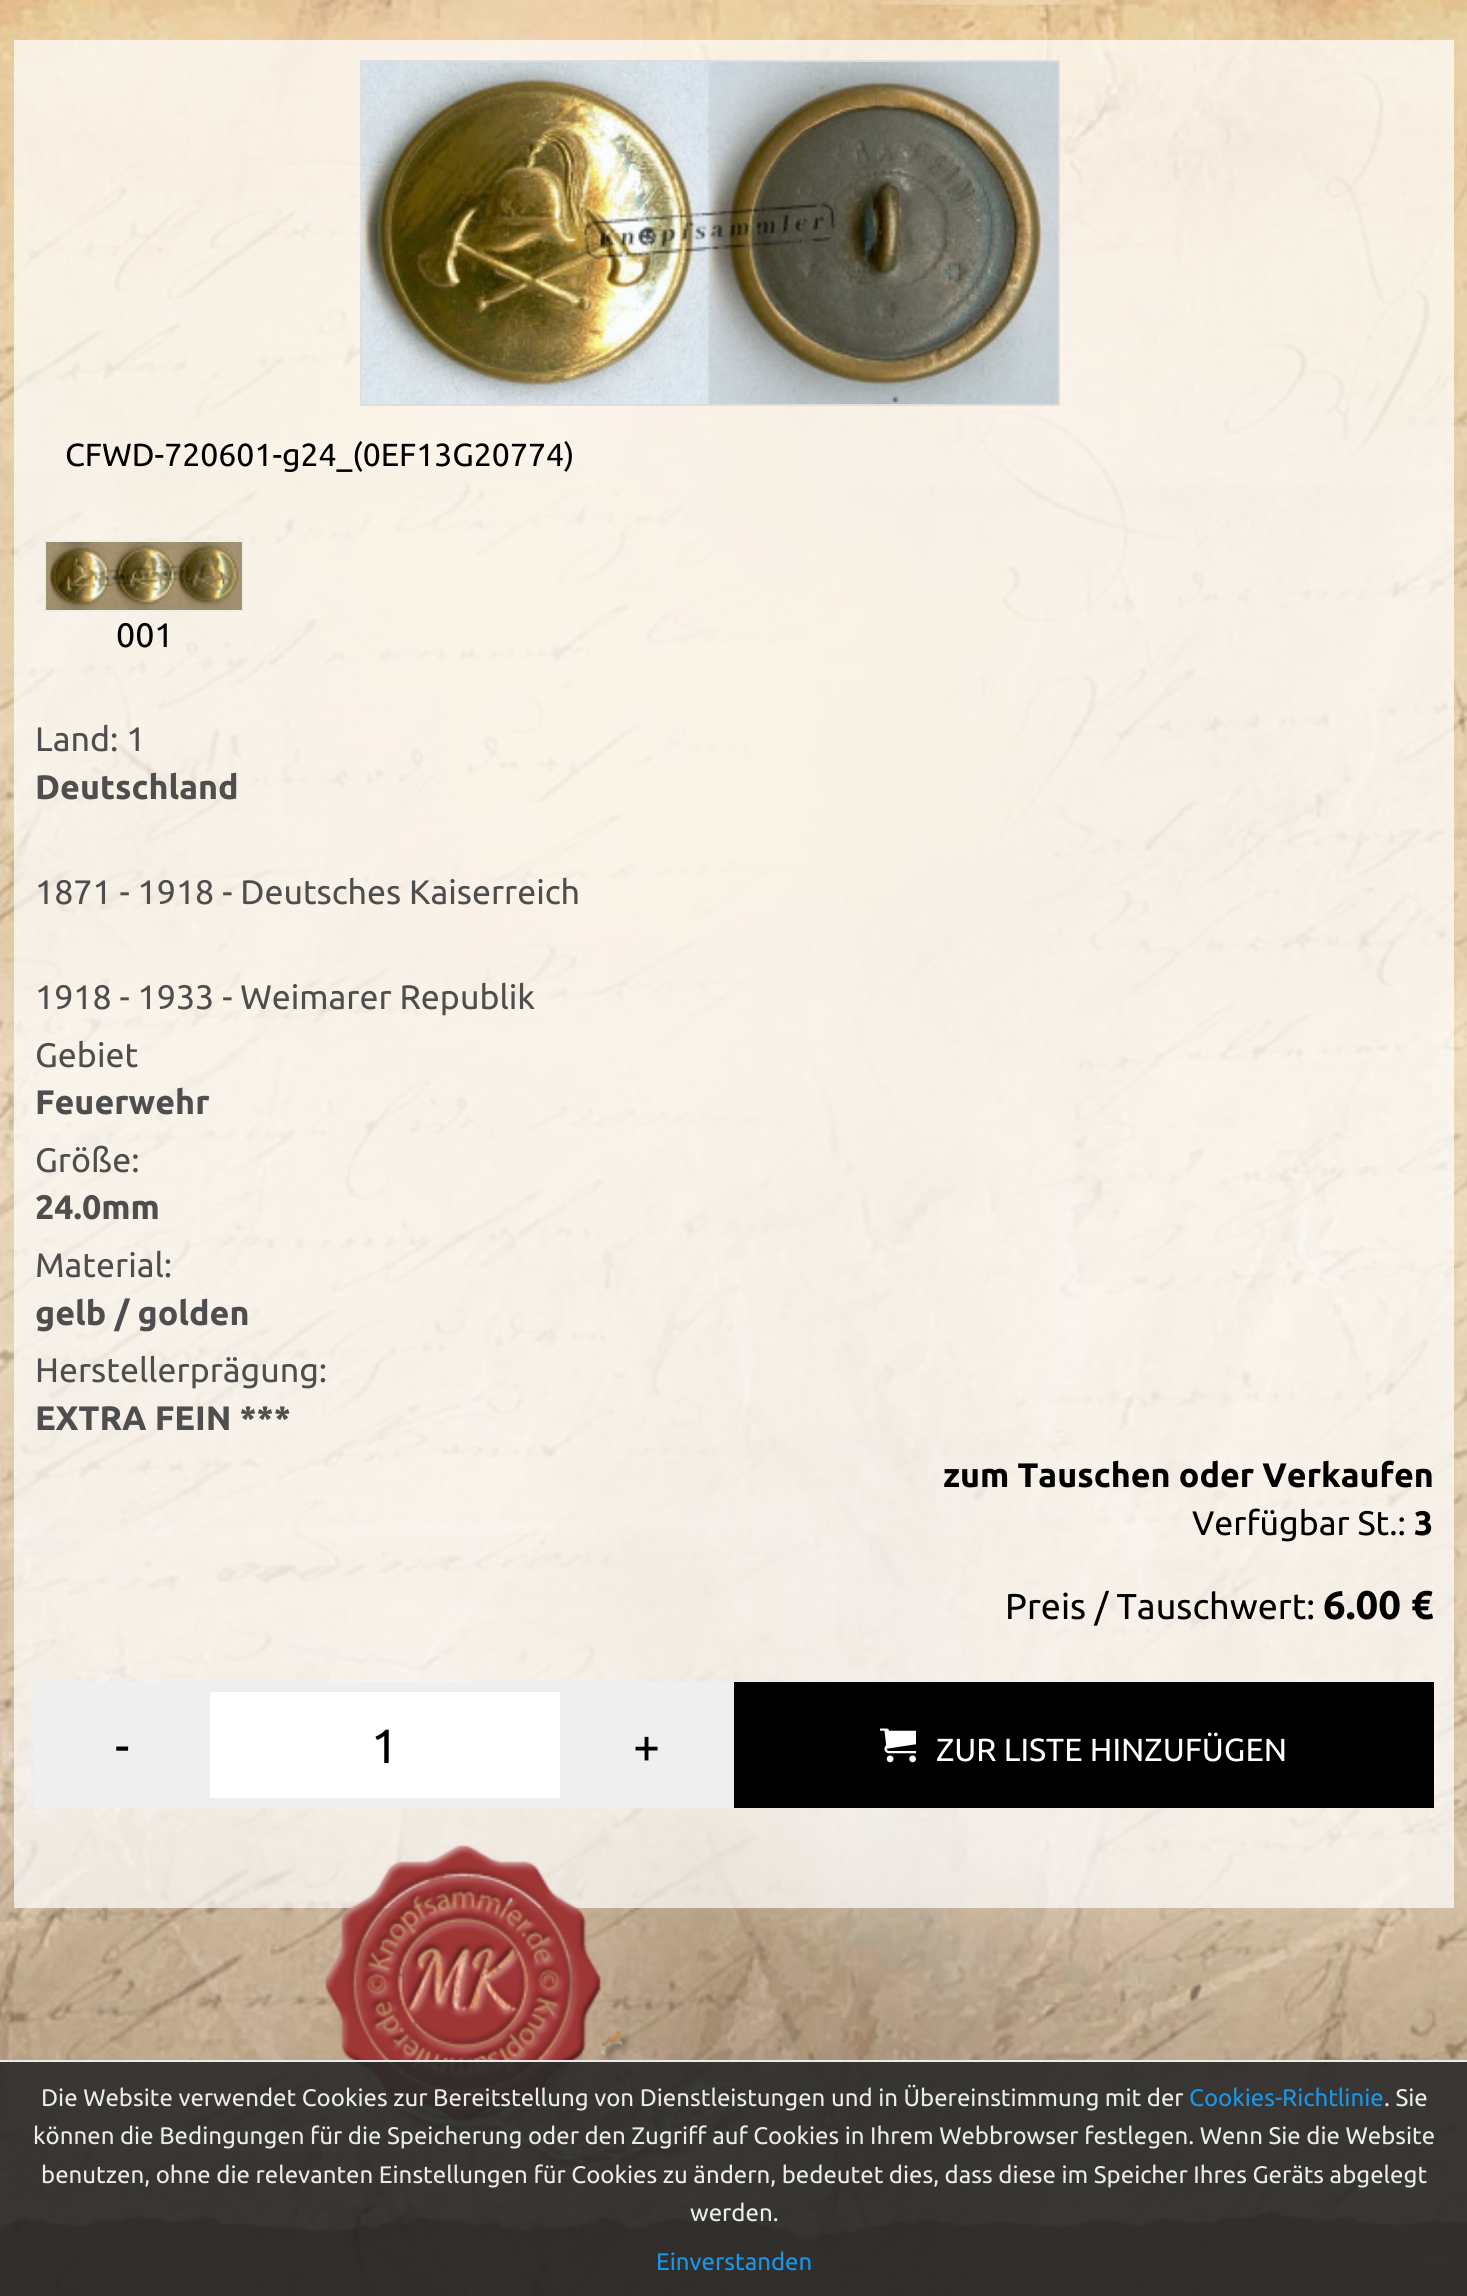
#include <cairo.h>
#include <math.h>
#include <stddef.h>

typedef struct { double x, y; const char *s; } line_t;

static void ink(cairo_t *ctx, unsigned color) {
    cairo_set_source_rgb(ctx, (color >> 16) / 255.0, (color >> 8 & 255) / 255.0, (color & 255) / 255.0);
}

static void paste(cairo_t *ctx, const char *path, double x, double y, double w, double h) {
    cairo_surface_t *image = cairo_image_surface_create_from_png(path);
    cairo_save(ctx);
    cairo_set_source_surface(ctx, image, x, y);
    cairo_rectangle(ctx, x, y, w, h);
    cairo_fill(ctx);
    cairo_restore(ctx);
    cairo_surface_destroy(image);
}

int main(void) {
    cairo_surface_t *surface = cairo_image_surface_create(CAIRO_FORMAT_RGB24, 1467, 2296);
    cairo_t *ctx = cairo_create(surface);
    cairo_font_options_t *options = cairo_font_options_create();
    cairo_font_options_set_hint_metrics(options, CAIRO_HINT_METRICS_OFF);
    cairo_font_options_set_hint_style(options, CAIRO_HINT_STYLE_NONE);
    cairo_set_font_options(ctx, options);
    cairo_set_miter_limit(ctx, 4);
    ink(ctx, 0xFFFFFF);
    cairo_paint(ctx);
    paste(ctx, "media/1.png", 0, 0, 1467, 2296);
    cairo_set_source_rgba(ctx, 1, 1, 1, 0.7);
    cairo_rectangle(ctx, 14, 40, 1440, 1868);
    cairo_fill(ctx);
    cairo_rectangle(ctx, 361, 61, 698, 344);
    ink(ctx, 0xDEDEDE);
    cairo_stroke(ctx);
    paste(ctx, "media/2.png", 362, 62, 696, 342);
    cairo_select_font_face(ctx, "Ubuntu", CAIRO_FONT_SLANT_NORMAL, CAIRO_FONT_WEIGHT_NORMAL);
    cairo_set_font_size(ctx, 32);
    ink(ctx, 0x000000);
    cairo_move_to(ctx, 65, 466);
    cairo_show_text(ctx, "CFWD-720601-g24_(0EF13G20774)");
    cairo_rectangle(ctx, 45, 541, 198, 70);
    ink(ctx, 0xEEEEEE);
    cairo_stroke(ctx);
    paste(ctx, "media/3.png", 46, 542, 196, 68);
    cairo_set_font_size(ctx, 34);
    ink(ctx, 0x000000);
    cairo_move_to(ctx, 116, 647);
    cairo_show_text(ctx, "001");
    ink(ctx, 0x4E4E4E);
    cairo_move_to(ctx, 35, 751);
    cairo_show_text(ctx, "Land: 1");
    cairo_select_font_face(ctx, "Ubuntu", CAIRO_FONT_SLANT_NORMAL, CAIRO_FONT_WEIGHT_BOLD);
    cairo_move_to(ctx, 35, 799);
    cairo_show_text(ctx, "Deutschland");
    cairo_select_font_face(ctx, "Ubuntu", CAIRO_FONT_SLANT_NORMAL, CAIRO_FONT_WEIGHT_NORMAL);
    {
        static const line_t items[] = {
            {35, 904, "1871 - 1918 - Deutsches Kaiserreich"},
            {35, 1009, "1918 - 1933 - Weimarer Republik"},
            {35, 1067, "Gebiet"},
        };
        for (size_t i = 0; i < sizeof items / sizeof *items; i++) {
            cairo_move_to(ctx, items[i].x, items[i].y);
            cairo_show_text(ctx, items[i].s);
        }
    }
    cairo_select_font_face(ctx, "Ubuntu", CAIRO_FONT_SLANT_NORMAL, CAIRO_FONT_WEIGHT_BOLD);
    cairo_move_to(ctx, 35, 1114);
    cairo_show_text(ctx, "Feuerwehr");
    cairo_select_font_face(ctx, "Ubuntu", CAIRO_FONT_SLANT_NORMAL, CAIRO_FONT_WEIGHT_NORMAL);
    cairo_move_to(ctx, 35, 1172);
    cairo_show_text(ctx, "Größe:");
    cairo_select_font_face(ctx, "Ubuntu", CAIRO_FONT_SLANT_NORMAL, CAIRO_FONT_WEIGHT_BOLD);
    cairo_move_to(ctx, 35, 1219);
    cairo_show_text(ctx, "24.0mm");
    cairo_select_font_face(ctx, "Ubuntu", CAIRO_FONT_SLANT_NORMAL, CAIRO_FONT_WEIGHT_NORMAL);
    cairo_move_to(ctx, 35, 1277);
    cairo_show_text(ctx, "Material:");
    cairo_select_font_face(ctx, "Ubuntu", CAIRO_FONT_SLANT_NORMAL, CAIRO_FONT_WEIGHT_BOLD);
    cairo_move_to(ctx, 35, 1325);
    cairo_show_text(ctx, "gelb / golden");
    cairo_select_font_face(ctx, "Ubuntu", CAIRO_FONT_SLANT_NORMAL, CAIRO_FONT_WEIGHT_NORMAL);
    cairo_move_to(ctx, 35, 1382);
    cairo_show_text(ctx, "Herstellerprägung:");
    cairo_select_font_face(ctx, "Ubuntu", CAIRO_FONT_SLANT_NORMAL, CAIRO_FONT_WEIGHT_BOLD);
    cairo_move_to(ctx, 35, 1430);
    cairo_show_text(ctx, "EXTRA FEIN ***");
    ink(ctx, 0x000000);
    cairo_move_to(ctx, 943, 1487);
    cairo_show_text(ctx, "zum Tauschen oder Verkaufen");
    cairo_select_font_face(ctx, "Ubuntu", CAIRO_FONT_SLANT_NORMAL, CAIRO_FONT_WEIGHT_NORMAL);
    cairo_move_to(ctx, 1192, 1535);
    cairo_show_text(ctx, "Verfügbar St.:");
    cairo_select_font_face(ctx, "Ubuntu", CAIRO_FONT_SLANT_NORMAL, CAIRO_FONT_WEIGHT_BOLD);
    cairo_move_to(ctx, 1414, 1535);
    cairo_show_text(ctx, "3");
    cairo_select_font_face(ctx, "Ubuntu", CAIRO_FONT_SLANT_NORMAL, CAIRO_FONT_WEIGHT_NORMAL);
    cairo_set_font_size(ctx, 36);
    cairo_move_to(ctx, 1005, 1619);
    cairo_show_text(ctx, "Preis / Tauschwert:");
    cairo_select_font_face(ctx, "Ubuntu", CAIRO_FONT_SLANT_NORMAL, CAIRO_FONT_WEIGHT_BOLD);
    cairo_set_font_size(ctx, 40);
    cairo_move_to(ctx, 1323, 1619);
    cairo_show_text(ctx, "6.00 €");
    ink(ctx, 0xEEEFEE);
    cairo_rectangle(ctx, 34, 1682, 700, 126);
    cairo_fill(ctx);
    cairo_select_font_face(ctx, "Ubuntu", CAIRO_FONT_SLANT_NORMAL, CAIRO_FONT_WEIGHT_NORMAL);
    cairo_set_font_size(ctx, 48);
    ink(ctx, 0x000000);
    cairo_move_to(ctx, 115, 1763);
    cairo_show_text(ctx, "-");
    ink(ctx, 0xFFFFFF);
    cairo_rectangle(ctx, 210, 1692, 350, 106);
    cairo_fill(ctx);
    ink(ctx, 0x000000);
    cairo_move_to(ctx, 371, 1763);
    cairo_show_text(ctx, "1");
    cairo_move_to(ctx, 633, 1763);
    cairo_show_text(ctx, "+");
    cairo_rectangle(ctx, 734, 1682, 700, 126);
    cairo_fill(ctx);
    paste(ctx, "media/4.png", 880, 1728, 36, 35);
    cairo_set_font_size(ctx, 32);
    ink(ctx, 0xFFFFFF);
    cairo_move_to(ctx, 936, 1761);
    cairo_show_text(ctx, "ZUR LISTE HINZUFÜGEN");
    paste(ctx, "media/5.png", 0, 2208, 1467, 42);
    cairo_set_source_rgba(ctx, 0, 0, 0, 0.38);
    cairo_rectangle(ctx, 0, 2250, 1467, 46);
    cairo_fill(ctx);
    paste(ctx, "media/6.png", 325, 1845, 421, 323);
    cairo_set_source_rgba(ctx, 0.169, 0.169, 0.165, 0.9);
    cairo_rectangle(ctx, 0, 2060, 1467, 236);
    cairo_fill(ctx);
    cairo_set_source_rgba(ctx, 1, 1, 1, 0.9);
    cairo_rectangle(ctx, 0, 2060, 1467, 2);
    cairo_fill(ctx);
    cairo_set_font_size(ctx, 24);
    ink(ctx, 0xEBEBEA);
    cairo_move_to(ctx, 41, 2106);
    cairo_show_text(ctx, "Die Website verwendet Cookies zur Bereitstellung von Dienstleistungen und in Übereinstimmung mit der");
    ink(ctx, 0x1B96E7);
    cairo_move_to(ctx, 1189, 2106);
    cairo_show_text(ctx, "Cookies-Richtlinie");
    ink(ctx, 0xEBEBEA);
    {
        static const line_t items[] = {
            {1384, 2106, ". Sie"},
            {33, 2144, "können die Bedingungen für die Speicherung oder den Zugriff auf Cookies in Ihrem Webbrowser festlegen. Wenn Sie die Website"},
            {41, 2183, "benutzen, ohne die relevanten Einstellungen für Cookies zu ändern, bedeutet dies, dass diese im Speicher Ihres Geräts abgelegt"},
            {690, 2221, "werden."},
        };
        for (size_t i = 0; i < sizeof items / sizeof *items; i++) {
            cairo_move_to(ctx, items[i].x, items[i].y);
            cairo_show_text(ctx, items[i].s);
        }
    }
    ink(ctx, 0x1B96E7);
    cairo_move_to(ctx, 656, 2270);
    cairo_show_text(ctx, "Einverstanden");
    cairo_surface_write_to_png(surface, "image.png");
    cairo_font_options_destroy(options);
    cairo_destroy(ctx);
    cairo_surface_destroy(surface);
    return 0;
}
